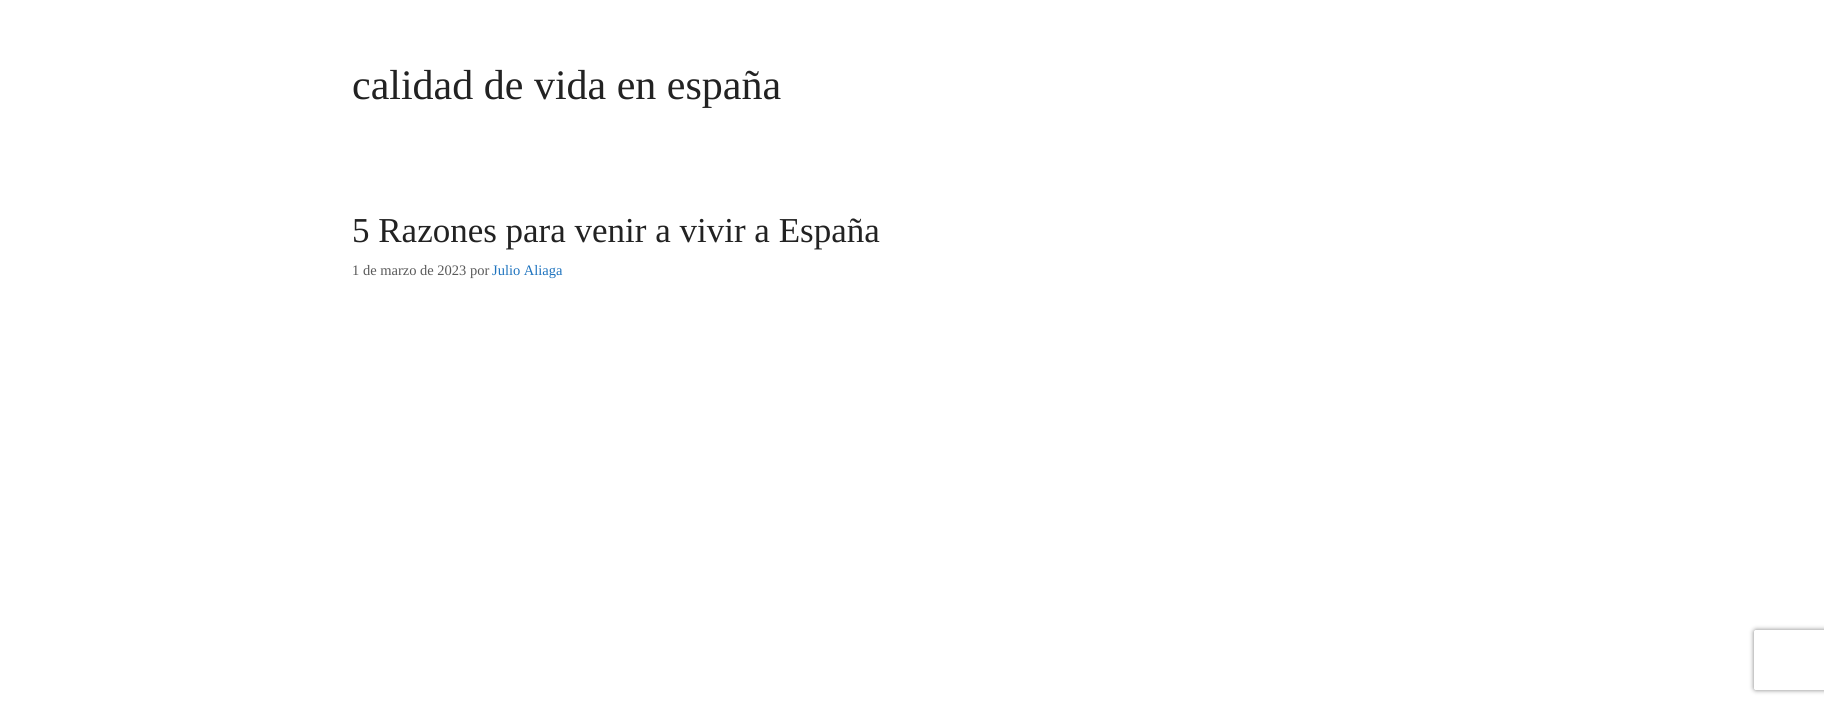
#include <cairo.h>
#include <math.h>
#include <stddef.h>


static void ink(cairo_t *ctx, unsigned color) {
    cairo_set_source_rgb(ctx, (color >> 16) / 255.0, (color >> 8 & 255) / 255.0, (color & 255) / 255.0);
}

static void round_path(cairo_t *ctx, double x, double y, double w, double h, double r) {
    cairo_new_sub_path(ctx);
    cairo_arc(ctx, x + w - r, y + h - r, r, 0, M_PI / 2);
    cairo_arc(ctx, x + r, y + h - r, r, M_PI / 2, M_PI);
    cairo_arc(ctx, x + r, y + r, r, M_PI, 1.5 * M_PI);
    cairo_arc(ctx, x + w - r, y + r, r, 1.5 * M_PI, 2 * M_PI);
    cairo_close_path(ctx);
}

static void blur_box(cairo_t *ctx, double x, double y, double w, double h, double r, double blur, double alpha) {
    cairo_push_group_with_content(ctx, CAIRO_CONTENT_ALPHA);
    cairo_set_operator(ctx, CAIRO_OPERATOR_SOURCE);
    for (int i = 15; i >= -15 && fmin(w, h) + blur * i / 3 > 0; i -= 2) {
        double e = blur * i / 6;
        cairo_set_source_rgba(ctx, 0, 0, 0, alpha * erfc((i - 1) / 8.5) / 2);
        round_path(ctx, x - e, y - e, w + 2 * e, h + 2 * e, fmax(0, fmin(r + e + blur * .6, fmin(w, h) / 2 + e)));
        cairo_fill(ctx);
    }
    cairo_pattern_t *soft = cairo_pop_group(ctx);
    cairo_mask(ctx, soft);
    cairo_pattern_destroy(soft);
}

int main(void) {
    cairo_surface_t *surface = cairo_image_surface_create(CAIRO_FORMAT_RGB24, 1824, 704);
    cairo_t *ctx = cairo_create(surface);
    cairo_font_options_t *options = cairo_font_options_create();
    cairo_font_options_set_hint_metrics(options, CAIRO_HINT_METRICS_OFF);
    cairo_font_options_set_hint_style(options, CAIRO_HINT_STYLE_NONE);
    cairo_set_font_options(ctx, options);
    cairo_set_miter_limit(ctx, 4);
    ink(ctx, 0xFFFFFF);
    cairo_paint(ctx);
    cairo_select_font_face(ctx, "Liberation Serif", CAIRO_FONT_SLANT_NORMAL, CAIRO_FONT_WEIGHT_NORMAL);
    cairo_set_font_size(ctx, 42);
    ink(ctx, 0x222222);
    cairo_move_to(ctx, 352, 99);
    cairo_show_text(ctx, "calidad de vida en españa");
    cairo_set_font_size(ctx, 35);
    cairo_move_to(ctx, 352, 242);
    cairo_show_text(ctx, "5 Razones para venir a vivir a España");
    cairo_set_font_size(ctx, 14.5);
    ink(ctx, 0x595959);
    cairo_move_to(ctx, 352, 275);
    cairo_show_text(ctx, "1 de marzo de 2023 por");
    ink(ctx, 0x1E73BE);
    cairo_move_to(ctx, 492, 275);
    cairo_show_text(ctx, "Julio Aliaga");
    cairo_save(ctx);
    cairo_set_fill_rule(ctx, CAIRO_FILL_RULE_EVEN_ODD);
    cairo_new_path(ctx);
    cairo_move_to(ctx, 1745, 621);
    cairo_line_to(ctx, 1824, 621);
    cairo_line_to(ctx, 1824, 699);
    cairo_line_to(ctx, 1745, 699);
    cairo_close_path(ctx);
    cairo_move_to(ctx, 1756, 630);
    cairo_line_to(ctx, 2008, 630);
    cairo_curve_to(ctx, 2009, 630, 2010, 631, 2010, 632);
    cairo_line_to(ctx, 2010, 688);
    cairo_curve_to(ctx, 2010, 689, 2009, 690, 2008, 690);
    cairo_line_to(ctx, 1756, 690);
    cairo_curve_to(ctx, 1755, 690, 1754, 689, 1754, 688);
    cairo_line_to(ctx, 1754, 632);
    cairo_curve_to(ctx, 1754, 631, 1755, 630, 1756, 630);
    cairo_close_path(ctx);
    cairo_clip(ctx);
    ink(ctx, 0x808080);
    blur_box(ctx, 1754, 630, 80, 60, 2, 2.5, 1);
    cairo_restore(ctx);
    cairo_surface_write_to_png(surface, "image.png");
    cairo_font_options_destroy(options);
    cairo_destroy(ctx);
    cairo_surface_destroy(surface);
    return 0;
}
